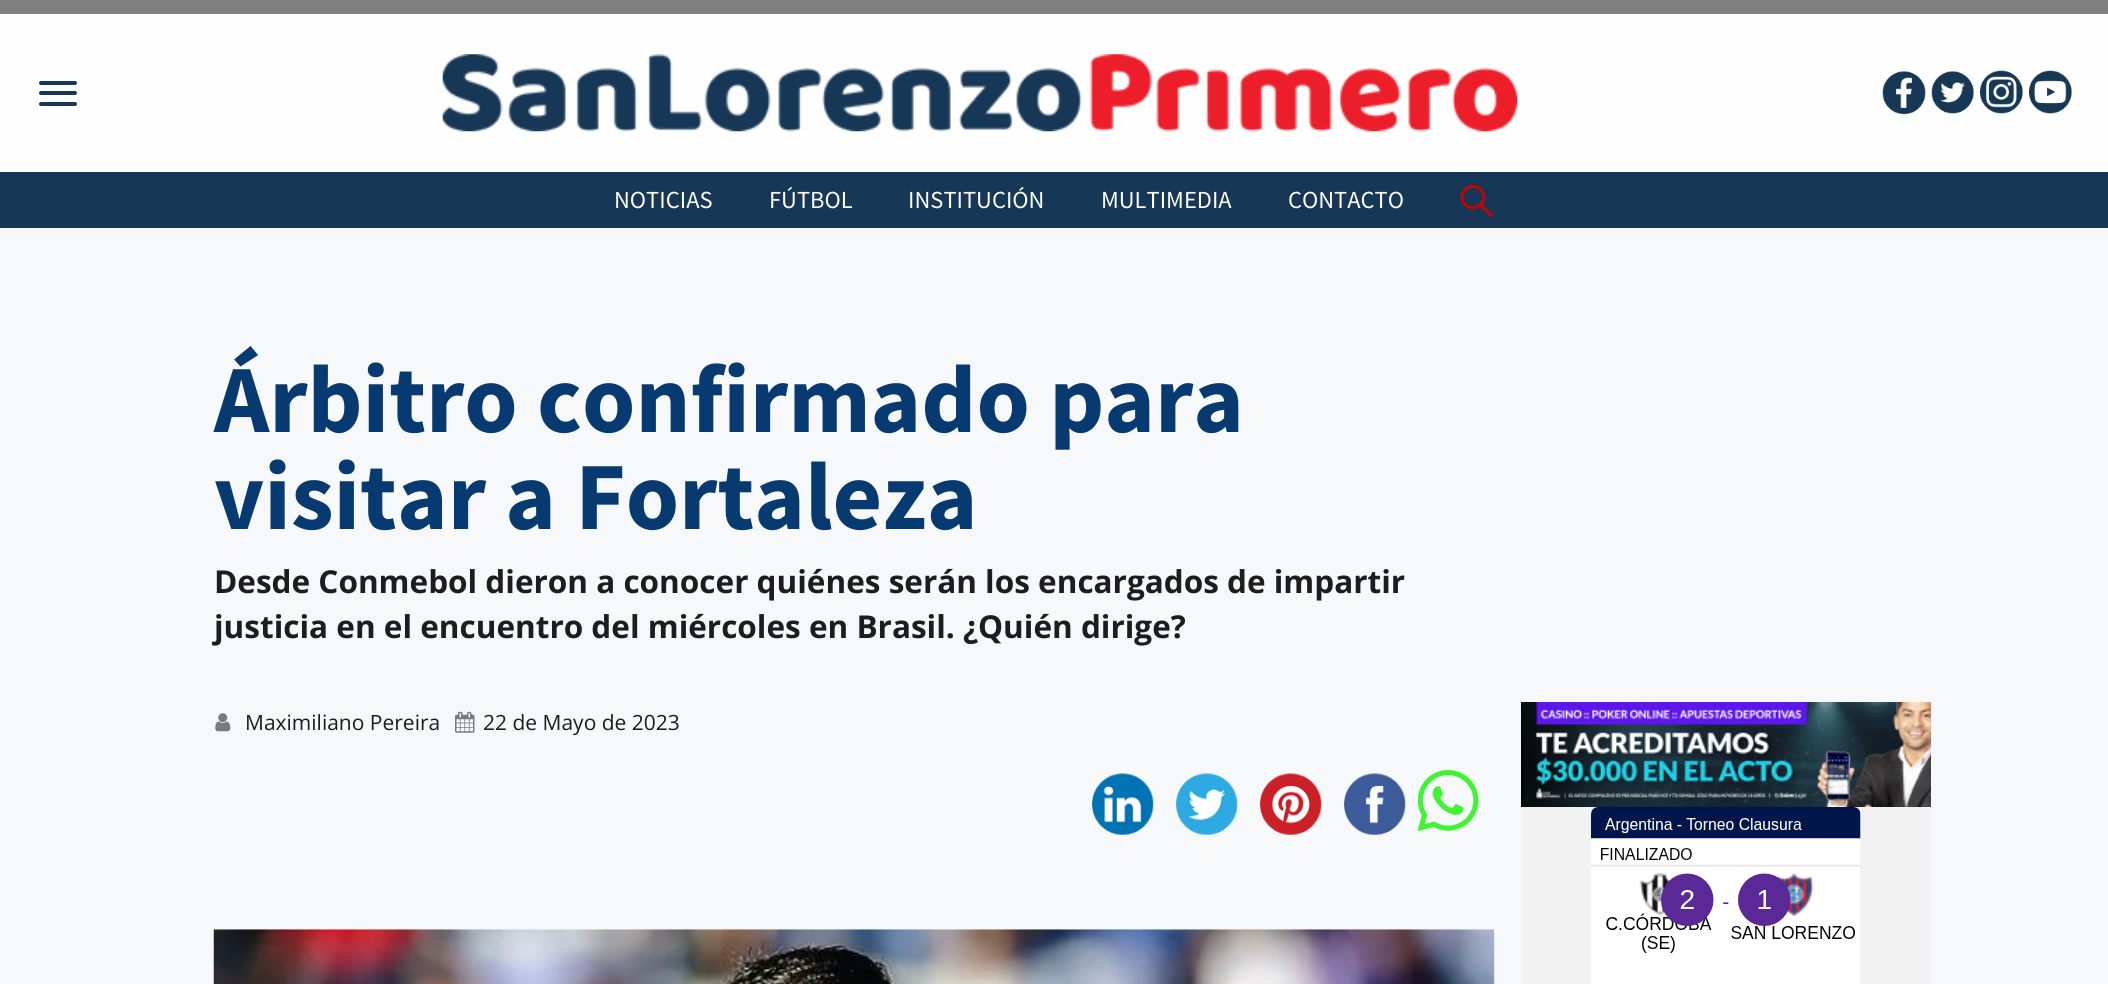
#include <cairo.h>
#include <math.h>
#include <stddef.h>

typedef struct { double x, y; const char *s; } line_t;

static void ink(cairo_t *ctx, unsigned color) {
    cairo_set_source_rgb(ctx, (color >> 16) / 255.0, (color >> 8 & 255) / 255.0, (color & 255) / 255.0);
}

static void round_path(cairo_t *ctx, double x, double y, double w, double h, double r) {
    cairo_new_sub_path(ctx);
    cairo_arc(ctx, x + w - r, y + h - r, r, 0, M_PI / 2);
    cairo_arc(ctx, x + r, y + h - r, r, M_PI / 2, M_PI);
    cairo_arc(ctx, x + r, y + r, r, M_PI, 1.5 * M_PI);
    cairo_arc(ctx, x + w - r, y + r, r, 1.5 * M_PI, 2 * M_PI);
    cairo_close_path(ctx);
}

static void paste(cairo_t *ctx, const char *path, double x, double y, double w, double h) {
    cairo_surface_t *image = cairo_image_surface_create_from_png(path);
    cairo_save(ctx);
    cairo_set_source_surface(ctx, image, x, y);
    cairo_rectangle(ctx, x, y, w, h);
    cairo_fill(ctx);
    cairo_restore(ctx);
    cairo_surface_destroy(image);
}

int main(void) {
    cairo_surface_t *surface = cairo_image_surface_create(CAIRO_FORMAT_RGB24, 2108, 984);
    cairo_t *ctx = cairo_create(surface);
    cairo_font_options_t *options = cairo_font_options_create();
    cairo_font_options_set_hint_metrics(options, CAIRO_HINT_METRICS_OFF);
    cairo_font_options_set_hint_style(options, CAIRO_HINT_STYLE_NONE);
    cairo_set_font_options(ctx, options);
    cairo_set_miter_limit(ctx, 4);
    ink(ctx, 0x808080);
    cairo_paint(ctx);
    ink(ctx, 0xF7F8FA);
    cairo_rectangle(ctx, 0, 228, 2108, 756);
    cairo_fill(ctx);
    ink(ctx, 0xFEFEFE);
    cairo_rectangle(ctx, 0, 14, 2108, 158);
    cairo_fill(ctx);
    ink(ctx, 0x163856);
    round_path(ctx, 39, 81, 38, 4, 2);
    cairo_fill(ctx);
    round_path(ctx, 39, 91, 38, 4, 2);
    cairo_fill(ctx);
    round_path(ctx, 39, 102, 38, 4, 2);
    cairo_fill(ctx);
    paste(ctx, "media/1.png", 442, 54, 1076, 78);
    paste(ctx, "media/2.png", 1882, 71, 44, 43);
    paste(ctx, "media/3.png", 1931, 71, 43, 43);
    paste(ctx, "media/4.png", 1980, 70, 43, 44);
    paste(ctx, "media/5.png", 2029, 70, 43, 44);
    cairo_rectangle(ctx, 0, 172, 2108, 56);
    cairo_fill(ctx);
    cairo_select_font_face(ctx, "Source Sans Pro", CAIRO_FONT_SLANT_NORMAL, CAIRO_FONT_WEIGHT_NORMAL);
    cairo_set_font_size(ctx, 24.5);
    ink(ctx, 0xFFFFFF);
    {
        static const line_t items[] = {
            {614, 208, "NOTICIAS"},
            {769, 208, "FÚTBOL"},
            {908, 208, "INSTITUCIÓN"},
            {1101, 208, "MULTIMEDIA"},
            {1288, 208, "CONTACTO"},
        };
        for (size_t i = 0; i < sizeof items / sizeof *items; i++) {
            cairo_move_to(ctx, items[i].x, items[i].y);
            cairo_show_text(ctx, items[i].s);
        }
    }
    paste(ctx, "media/6.png", 1460, 185, 34, 33);
    cairo_select_font_face(ctx, "Source Sans Pro", CAIRO_FONT_SLANT_NORMAL, CAIRO_FONT_WEIGHT_BOLD);
    cairo_set_font_size(ctx, 96.25);
    ink(ctx, 0x073A70);
    cairo_move_to(ctx, 214, 432);
    cairo_show_text(ctx, "Árbitro confirmado para");
    cairo_move_to(ctx, 214, 529);
    cairo_show_text(ctx, "visitar a Fortaleza");
    cairo_select_font_face(ctx, "Open Sans", CAIRO_FONT_SLANT_NORMAL, CAIRO_FONT_WEIGHT_BOLD);
    cairo_set_font_size(ctx, 31.5);
    ink(ctx, 0x1D1D1D);
    cairo_move_to(ctx, 214, 593);
    cairo_show_text(ctx, "Desde Conmebol dieron a conocer quiénes serán los encargados de impartir");
    cairo_move_to(ctx, 214, 638);
    cairo_show_text(ctx, "justicia en el encuentro del miércoles en Brasil. ¿Quién dirige?");
    paste(ctx, "media/7.png", 215, 713, 16, 19);
    cairo_select_font_face(ctx, "Open Sans", CAIRO_FONT_SLANT_NORMAL, CAIRO_FONT_WEIGHT_NORMAL);
    cairo_set_font_size(ctx, 21);
    cairo_move_to(ctx, 245, 730);
    cairo_show_text(ctx, "Maximiliano Pereira");
    paste(ctx, "media/8.png", 455, 711, 20, 22);
    cairo_move_to(ctx, 483, 730);
    cairo_show_text(ctx, "22 de Mayo de 2023");
    paste(ctx, "media/9.png", 1092, 773, 62, 62);
    paste(ctx, "media/10.png", 1176, 773, 62, 62);
    paste(ctx, "media/11.png", 1260, 773, 62, 62);
    paste(ctx, "media/12.png", 1344, 773, 62, 62);
    paste(ctx, "media/13.png", 1418, 770, 61, 61);
    ink(ctx, 0xFFFFFF);
    cairo_rectangle(ctx, 214, 929, 1281, 55);
    cairo_fill(ctx);
    paste(ctx, "media/14.png", 213, 929, 1282, 55);
    paste(ctx, "media/15.png", 1521, 702, 410, 282);
    cairo_surface_write_to_png(surface, "image.png");
    cairo_font_options_destroy(options);
    cairo_destroy(ctx);
    cairo_surface_destroy(surface);
    return 0;
}
